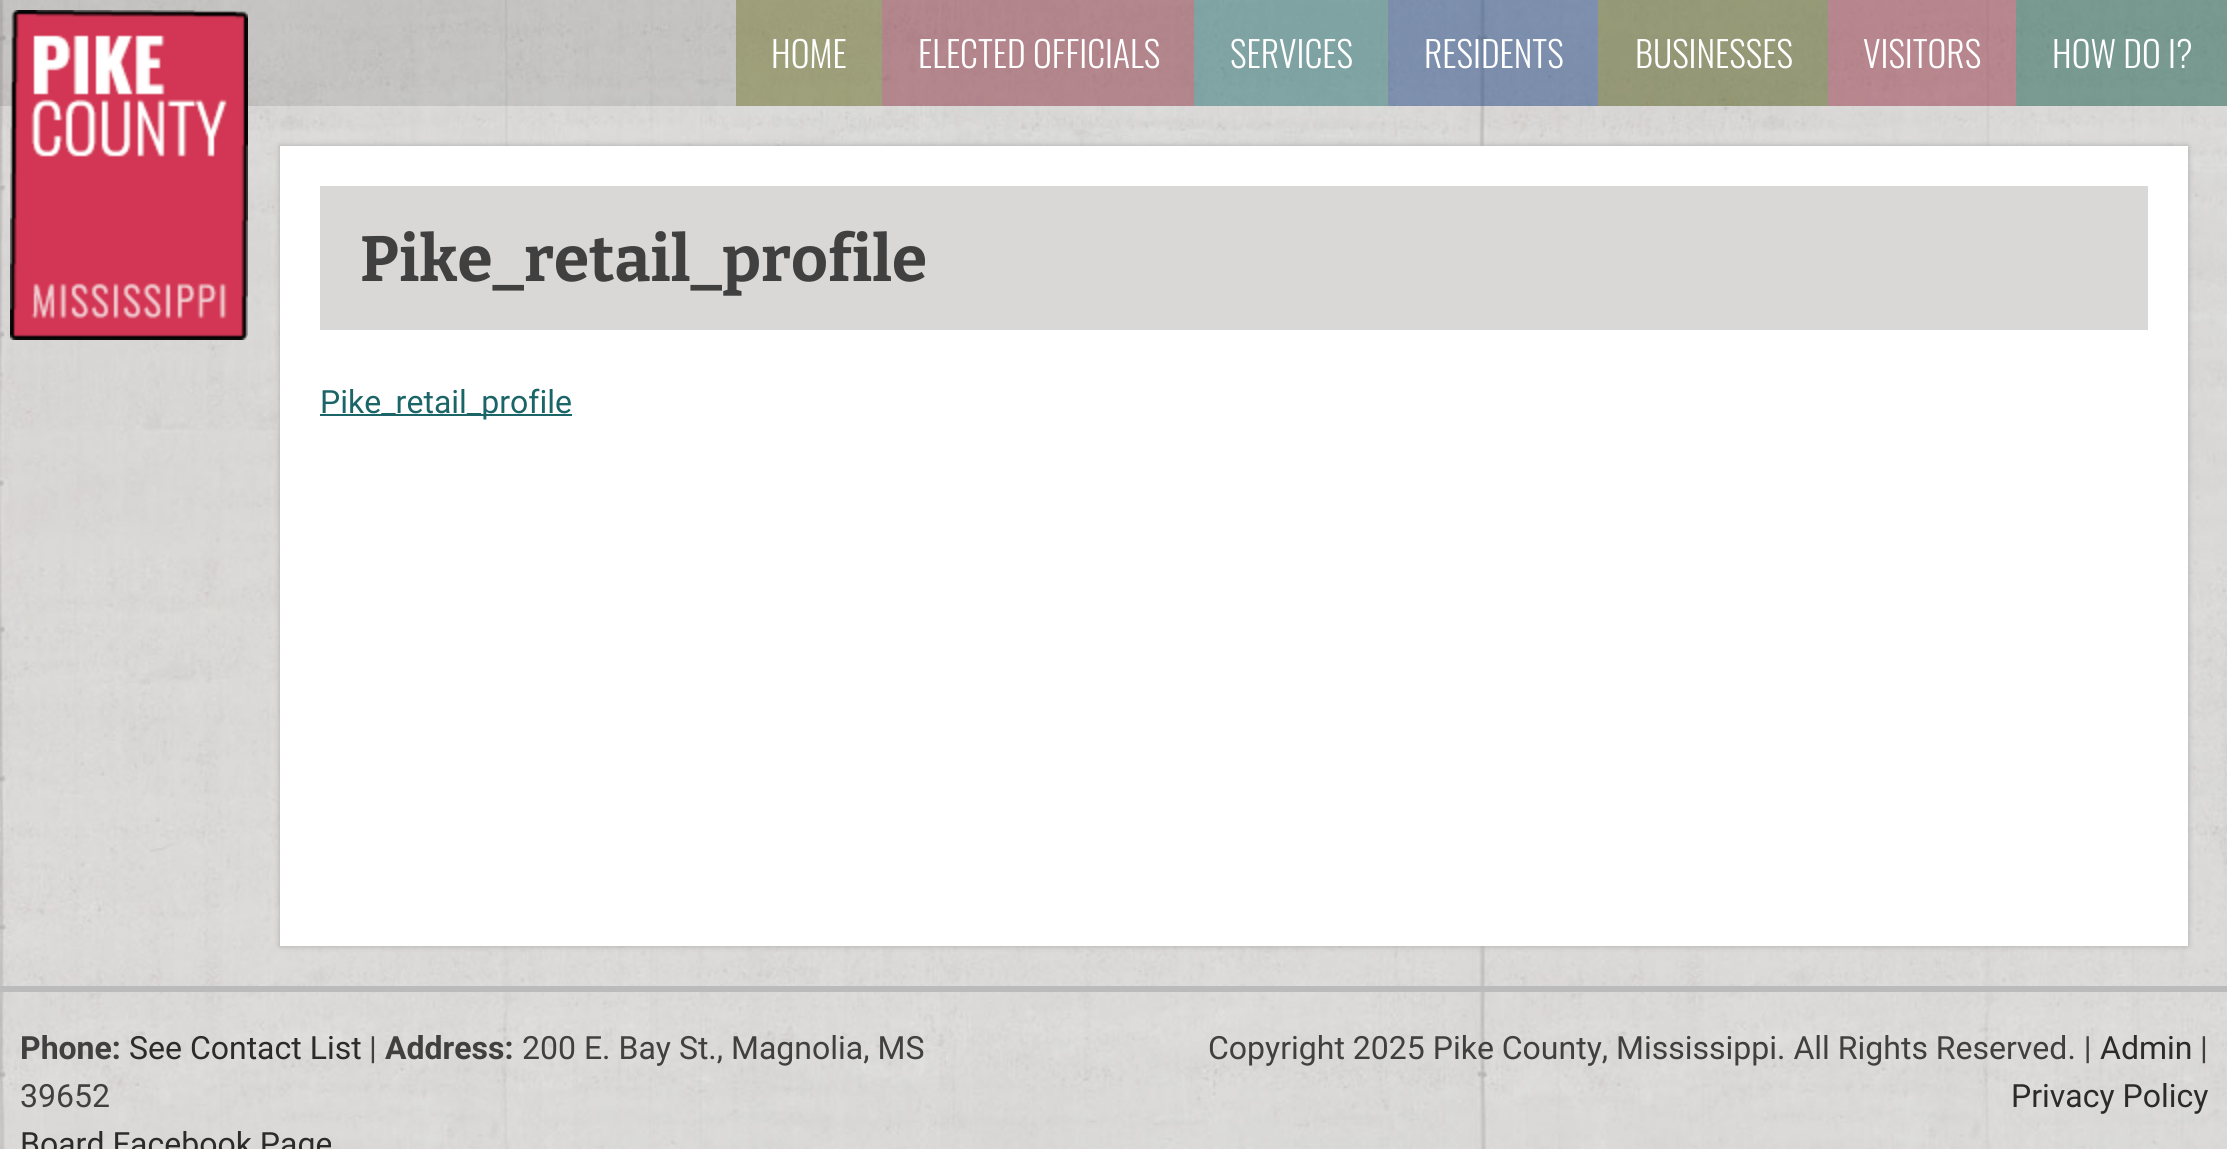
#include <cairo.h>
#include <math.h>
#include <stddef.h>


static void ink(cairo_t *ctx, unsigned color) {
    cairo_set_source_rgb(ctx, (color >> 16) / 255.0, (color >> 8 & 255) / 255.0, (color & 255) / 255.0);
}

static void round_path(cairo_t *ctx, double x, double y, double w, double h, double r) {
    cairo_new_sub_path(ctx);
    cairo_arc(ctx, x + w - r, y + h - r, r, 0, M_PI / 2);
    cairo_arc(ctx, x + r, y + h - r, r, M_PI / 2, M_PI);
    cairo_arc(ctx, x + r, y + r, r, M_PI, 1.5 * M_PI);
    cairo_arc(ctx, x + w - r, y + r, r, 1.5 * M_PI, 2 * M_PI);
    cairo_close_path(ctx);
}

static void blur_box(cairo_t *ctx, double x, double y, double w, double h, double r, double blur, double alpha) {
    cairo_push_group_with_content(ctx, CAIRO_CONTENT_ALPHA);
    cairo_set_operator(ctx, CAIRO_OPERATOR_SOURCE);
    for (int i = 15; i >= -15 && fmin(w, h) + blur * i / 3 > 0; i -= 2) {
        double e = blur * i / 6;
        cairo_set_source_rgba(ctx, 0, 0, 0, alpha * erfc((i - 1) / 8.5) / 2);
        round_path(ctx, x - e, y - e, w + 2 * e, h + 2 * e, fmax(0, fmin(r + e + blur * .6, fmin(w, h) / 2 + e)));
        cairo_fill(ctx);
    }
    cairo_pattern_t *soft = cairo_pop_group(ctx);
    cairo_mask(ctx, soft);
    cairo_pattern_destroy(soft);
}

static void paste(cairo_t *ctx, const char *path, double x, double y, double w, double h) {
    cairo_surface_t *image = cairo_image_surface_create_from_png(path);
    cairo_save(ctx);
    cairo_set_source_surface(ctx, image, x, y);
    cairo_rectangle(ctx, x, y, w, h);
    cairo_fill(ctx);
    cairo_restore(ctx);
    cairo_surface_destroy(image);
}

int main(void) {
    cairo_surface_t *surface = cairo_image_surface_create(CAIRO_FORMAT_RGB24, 2227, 1149);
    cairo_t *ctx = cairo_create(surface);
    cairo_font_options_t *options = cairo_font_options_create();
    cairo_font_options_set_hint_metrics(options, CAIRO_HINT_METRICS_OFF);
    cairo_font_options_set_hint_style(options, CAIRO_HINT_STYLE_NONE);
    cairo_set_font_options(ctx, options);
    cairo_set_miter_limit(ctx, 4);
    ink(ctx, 0xFFFFFF);
    cairo_paint(ctx);
    paste(ctx, "media/1.png", 0, 0, 2227, 1149);
    cairo_set_source_rgba(ctx, 0, 0, 0, 0.1);
    cairo_rectangle(ctx, 0, 0, 2227, 106);
    cairo_fill(ctx);
    paste(ctx, "media/2.png", 10, 10, 238, 330);
    cairo_set_source_rgba(ctx, 0.392, 0.412, 0.067, 0.4);
    cairo_rectangle(ctx, 736, 0, 146, 106);
    cairo_fill(ctx);
    cairo_select_font_face(ctx, "Oswald Light", CAIRO_FONT_SLANT_NORMAL, CAIRO_FONT_WEIGHT_NORMAL);
    cairo_set_font_size(ctx, 35.75);
    ink(ctx, 0xFFFFFF);
    cairo_move_to(ctx, 771, 68);
    cairo_show_text(ctx, "HOME");
    cairo_set_source_rgba(ctx, 0.596, 0.161, 0.243, 0.4);
    cairo_rectangle(ctx, 882, 0, 312, 106);
    cairo_fill(ctx);
    ink(ctx, 0xFFFFFF);
    cairo_move_to(ctx, 918, 68);
    cairo_show_text(ctx, "ELECTED OFFICIALS");
    cairo_set_source_rgba(ctx, 0.114, 0.467, 0.478, 0.4);
    cairo_rectangle(ctx, 1194, 0, 194, 106);
    cairo_fill(ctx);
    ink(ctx, 0xFFFFFF);
    cairo_move_to(ctx, 1230, 68);
    cairo_show_text(ctx, "SERVICES");
    cairo_set_source_rgba(ctx, 0.078, 0.263, 0.565, 0.4);
    cairo_rectangle(ctx, 1388, 0, 210, 106);
    cairo_fill(ctx);
    ink(ctx, 0xFFFFFF);
    cairo_move_to(ctx, 1424, 68);
    cairo_show_text(ctx, "RESIDENTS");
    cairo_set_source_rgba(ctx, 0.314, 0.353, 0.031, 0.4);
    cairo_rectangle(ctx, 1598, 0, 230, 106);
    cairo_fill(ctx);
    ink(ctx, 0xFFFFFF);
    cairo_move_to(ctx, 1635, 68);
    cairo_show_text(ctx, "BUSINESSES");
    cairo_set_source_rgba(ctx, 0.647, 0.169, 0.259, 0.4);
    cairo_rectangle(ctx, 1828, 0, 188, 106);
    cairo_fill(ctx);
    ink(ctx, 0xFFFFFF);
    cairo_move_to(ctx, 1863, 68);
    cairo_show_text(ctx, "VISITORS");
    cairo_set_source_rgba(ctx, 0.024, 0.353, 0.278, 0.4);
    cairo_rectangle(ctx, 2016, 0, 211, 106);
    cairo_fill(ctx);
    ink(ctx, 0xFFFFFF);
    cairo_move_to(ctx, 2052, 68);
    cairo_show_text(ctx, "HOW DO I?");
    ink(ctx, 0xAAAAAA);
    blur_box(ctx, 280, 146, 1908, 800, 0, 3, 1);
    ink(ctx, 0xFFFFFF);
    cairo_rectangle(ctx, 280, 146, 1908, 800);
    cairo_fill(ctx);
    ink(ctx, 0xD9D8D6);
    cairo_rectangle(ctx, 320, 186, 1828, 144);
    cairo_fill(ctx);
    cairo_select_font_face(ctx, "Bitter", CAIRO_FONT_SLANT_NORMAL, CAIRO_FONT_WEIGHT_BOLD);
    cairo_set_font_size(ctx, 64);
    ink(ctx, 0x404040);
    cairo_move_to(ctx, 360, 281);
    cairo_show_text(ctx, "Pike_retail_profile");
    ink(ctx, 0x1B6568);
    cairo_rectangle(ctx, 320, 414, 252, 2);
    cairo_fill(ctx);
    cairo_select_font_face(ctx, "Roboto", CAIRO_FONT_SLANT_NORMAL, CAIRO_FONT_WEIGHT_NORMAL);
    cairo_set_font_size(ctx, 32);
    cairo_move_to(ctx, 320, 413);
    cairo_show_text(ctx, "Pike_retail_profile");
    ink(ctx, 0xBBBBBB);
    cairo_rectangle(ctx, 0, 986, 2227, 6);
    cairo_fill(ctx);
    cairo_select_font_face(ctx, "Roboto", CAIRO_FONT_SLANT_NORMAL, CAIRO_FONT_WEIGHT_BOLD);
    ink(ctx, 0x404040);
    cairo_move_to(ctx, 20, 1059);
    cairo_show_text(ctx, "Phone:");
    cairo_select_font_face(ctx, "Roboto", CAIRO_FONT_SLANT_NORMAL, CAIRO_FONT_WEIGHT_NORMAL);
    ink(ctx, 0x2B2B2B);
    cairo_move_to(ctx, 129, 1059);
    cairo_show_text(ctx, "See Contact List");
    ink(ctx, 0x404040);
    cairo_move_to(ctx, 369, 1059);
    cairo_show_text(ctx, "|");
    cairo_select_font_face(ctx, "Roboto", CAIRO_FONT_SLANT_NORMAL, CAIRO_FONT_WEIGHT_BOLD);
    cairo_move_to(ctx, 385, 1059);
    cairo_show_text(ctx, "Address:");
    cairo_select_font_face(ctx, "Roboto", CAIRO_FONT_SLANT_NORMAL, CAIRO_FONT_WEIGHT_NORMAL);
    cairo_move_to(ctx, 522, 1059);
    cairo_show_text(ctx, "200 E. Bay St., Magnolia, MS");
    cairo_move_to(ctx, 20, 1107);
    cairo_show_text(ctx, "39652");
    ink(ctx, 0x2B2B2B);
    cairo_move_to(ctx, 20, 1155);
    cairo_show_text(ctx, "Board Facebook Page");
    ink(ctx, 0x404040);
    cairo_move_to(ctx, 1208, 1059);
    cairo_show_text(ctx, "Copyright 2025 Pike County, Mississippi. All Rights Reserved. |");
    ink(ctx, 0x2B2B2B);
    cairo_move_to(ctx, 2100, 1059);
    cairo_show_text(ctx, "Admin");
    ink(ctx, 0x404040);
    cairo_move_to(ctx, 2200, 1059);
    cairo_show_text(ctx, "|");
    ink(ctx, 0x2B2B2B);
    cairo_move_to(ctx, 2011, 1107);
    cairo_show_text(ctx, "Privacy Policy");
    cairo_surface_write_to_png(surface, "image.png");
    cairo_font_options_destroy(options);
    cairo_destroy(ctx);
    cairo_surface_destroy(surface);
    return 0;
}
